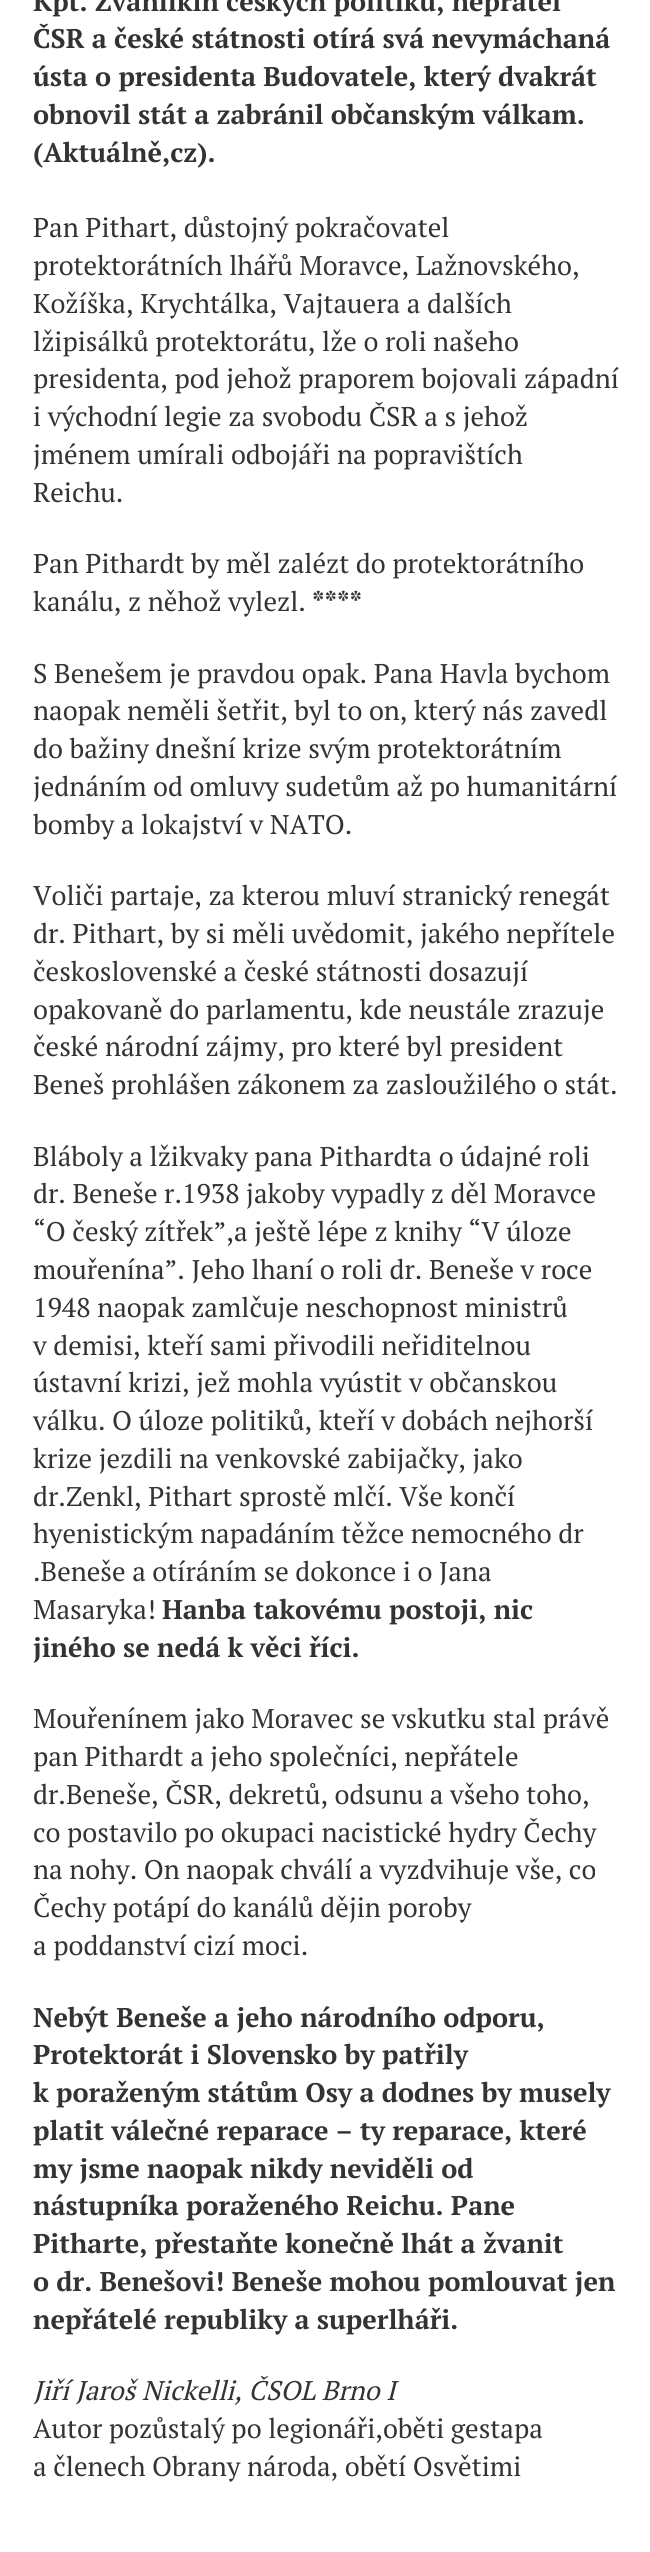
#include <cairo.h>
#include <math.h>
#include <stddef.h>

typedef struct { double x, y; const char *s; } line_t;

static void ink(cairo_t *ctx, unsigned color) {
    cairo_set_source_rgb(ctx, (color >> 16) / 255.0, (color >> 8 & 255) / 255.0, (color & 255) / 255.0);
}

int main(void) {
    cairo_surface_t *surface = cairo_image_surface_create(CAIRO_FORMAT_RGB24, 650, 2552);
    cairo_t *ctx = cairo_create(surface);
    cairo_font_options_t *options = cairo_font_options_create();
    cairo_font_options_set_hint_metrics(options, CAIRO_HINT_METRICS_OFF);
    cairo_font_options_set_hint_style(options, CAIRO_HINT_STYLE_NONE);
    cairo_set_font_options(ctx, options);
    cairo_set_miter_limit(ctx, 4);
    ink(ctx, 0xFFFFFF);
    cairo_paint(ctx);
    cairo_select_font_face(ctx, "PT Serif", CAIRO_FONT_SLANT_NORMAL, CAIRO_FONT_WEIGHT_BOLD);
    cairo_set_font_size(ctx, 27);
    ink(ctx, 0x333333);
    {
        static const line_t items[] = {
            {33, 11, "Kpt. Žvanilkin českých politiků, nepřátel"},
            {33, 48, "ČSR a české státnosti otírá svá nevymáchaná"},
            {33, 86, "ústa o presidenta Budovatele, který dvakrát"},
            {33, 124, "obnovil stát a zabránil občanským válkam."},
            {33, 162, "(Aktuálně,cz)."},
        };
        for (size_t i = 0; i < sizeof items / sizeof *items; i++) {
            cairo_move_to(ctx, items[i].x, items[i].y);
            cairo_show_text(ctx, items[i].s);
        }
    }
    cairo_select_font_face(ctx, "PT Serif", CAIRO_FONT_SLANT_NORMAL, CAIRO_FONT_WEIGHT_NORMAL);
    {
        static const line_t items[] = {
            {33, 237, "Pan Pithart, důstojný pokračovatel"},
            {33, 275, "protektorátních lhářů Moravce, Lažnovského,"},
            {33, 313, "Kožíška, Krychtálka, Vajtauera a dalších"},
            {33, 351, "lžipisálků protektorátu, lže o roli našeho"},
            {33, 388, "presidenta, pod jehož praporem bojovali západní"},
            {33, 426, "i východní legie za svobodu ČSR a s jehož"},
            {33, 464, "jménem umírali odbojáři na popravištích"},
            {33, 502, "Reichu."},
            {33, 573, "Pan Pithardt by měl zalézt do protektorátního"},
            {33, 611, "kanálu, z něhož vylezl."},
        };
        for (size_t i = 0; i < sizeof items / sizeof *items; i++) {
            cairo_move_to(ctx, items[i].x, items[i].y);
            cairo_show_text(ctx, items[i].s);
        }
    }
    cairo_select_font_face(ctx, "PT Serif", CAIRO_FONT_SLANT_NORMAL, CAIRO_FONT_WEIGHT_BOLD);
    cairo_move_to(ctx, 312, 611);
    cairo_show_text(ctx, "****");
    cairo_select_font_face(ctx, "PT Serif", CAIRO_FONT_SLANT_NORMAL, CAIRO_FONT_WEIGHT_NORMAL);
    {
        static const line_t items[] = {
            {33, 683, "S Benešem je pravdou opak. Pana Havla bychom"},
            {33, 720, "naopak neměli šetřit, byl to on, který nás zavedl"},
            {33, 758, "do bažiny dnešní krize svým protektorátním"},
            {33, 796, "jednáním od omluvy sudetům až po humanitární"},
            {33, 834, "bomby a lokajství v NATO."},
            {33, 905, "Voliči partaje, za kterou mluví stranický renegát"},
            {33, 943, "dr. Pithart, by si měli uvědomit, jakého nepřítele"},
            {33, 981, "československé a české státnosti dosazují"},
            {33, 1019, "opakovaně do parlamentu, kde neustále zrazuje"},
            {33, 1056, "české národní zájmy, pro které byl president"},
            {33, 1094, "Beneš prohlášen zákonem za zasloužilého o stát."},
            {33, 1166, "Bláboly a lžikvaky pana Pithardta o údajné roli"},
            {33, 1203, "dr. Beneše r.1938 jakoby vypadly z děl Moravce"},
            {33, 1241, "“O český zítřek”,a ještě lépe z knihy “V úloze"},
            {33, 1279, "mouřenína”. Jeho lhaní o roli dr. Beneše v roce"},
            {33, 1317, "1948 naopak zamlčuje neschopnost ministrů"},
            {33, 1355, "v demisi, kteří sami přivodili neřiditelnou"},
            {33, 1392, "ústavní krizi, jež mohla vyústit v občanskou"},
            {33, 1430, "válku. O úloze politiků, kteří v dobách nejhorší"},
            {33, 1468, "krize jezdili na venkovské zabijačky, jako"},
            {33, 1506, "dr.Zenkl, Pithart sprostě mlčí. Vše končí"},
            {33, 1543, "hyenistickým napadáním těžce nemocného dr"},
            {33, 1581, ".Beneše a otíráním se dokonce i o Jana"},
            {33, 1619, "Masaryka!"},
        };
        for (size_t i = 0; i < sizeof items / sizeof *items; i++) {
            cairo_move_to(ctx, items[i].x, items[i].y);
            cairo_show_text(ctx, items[i].s);
        }
    }
    cairo_select_font_face(ctx, "PT Serif", CAIRO_FONT_SLANT_NORMAL, CAIRO_FONT_WEIGHT_BOLD);
    cairo_move_to(ctx, 162, 1619);
    cairo_show_text(ctx, "Hanba takovému postoji, nic");
    cairo_move_to(ctx, 33, 1657);
    cairo_show_text(ctx, "jiného se nedá k věci říci.");
    cairo_select_font_face(ctx, "PT Serif", CAIRO_FONT_SLANT_NORMAL, CAIRO_FONT_WEIGHT_NORMAL);
    {
        static const line_t items[] = {
            {33, 1728, "Mouřenínem jako Moravec se vskutku stal právě"},
            {33, 1766, "pan Pithardt a jeho společníci, nepřátele"},
            {33, 1804, "dr.Beneše, ČSR, dekretů, odsunu a všeho toho,"},
            {33, 1842, "co postavilo po okupaci nacistické hydry Čechy"},
            {33, 1879, "na nohy. On naopak chválí a vyzdvihuje vše, co"},
            {33, 1917, "Čechy potápí do kanálů dějin poroby"},
            {33, 1955, "a poddanství cizí moci."},
        };
        for (size_t i = 0; i < sizeof items / sizeof *items; i++) {
            cairo_move_to(ctx, items[i].x, items[i].y);
            cairo_show_text(ctx, items[i].s);
        }
    }
    cairo_select_font_face(ctx, "PT Serif", CAIRO_FONT_SLANT_NORMAL, CAIRO_FONT_WEIGHT_BOLD);
    {
        static const line_t items[] = {
            {33, 2027, "Nebýt Beneše a jeho národního odporu,"},
            {33, 2064, "Protektorát i Slovensko by patřily"},
            {33, 2102, "k poraženým státům Osy a dodnes by musely"},
            {33, 2140, "platit válečné reparace – ty reparace, které"},
            {33, 2178, "my jsme naopak nikdy neviděli od"},
            {33, 2215, "nástupníka poraženého Reichu. Pane"},
            {33, 2253, "Pitharte, přestaňte konečně lhát a žvanit"},
            {33, 2291, "o dr. Benešovi! Beneše mohou pomlouvat jen"},
            {33, 2329, "nepřátelé republiky a superlháři."},
        };
        for (size_t i = 0; i < sizeof items / sizeof *items; i++) {
            cairo_move_to(ctx, items[i].x, items[i].y);
            cairo_show_text(ctx, items[i].s);
        }
    }
    cairo_select_font_face(ctx, "PT Serif", CAIRO_FONT_SLANT_ITALIC, CAIRO_FONT_WEIGHT_NORMAL);
    cairo_move_to(ctx, 33, 2400);
    cairo_show_text(ctx, "Jiří Jaroš Nickelli, ČSOL Brno I");
    cairo_select_font_face(ctx, "PT Serif", CAIRO_FONT_SLANT_NORMAL, CAIRO_FONT_WEIGHT_NORMAL);
    cairo_move_to(ctx, 33, 2438);
    cairo_show_text(ctx, "Autor pozůstalý po legionáři,oběti gestapa");
    cairo_move_to(ctx, 33, 2476);
    cairo_show_text(ctx, "a členech Obrany národa, obětí Osvětimi");
    cairo_surface_write_to_png(surface, "image.png");
    cairo_font_options_destroy(options);
    cairo_destroy(ctx);
    cairo_surface_destroy(surface);
    return 0;
}
